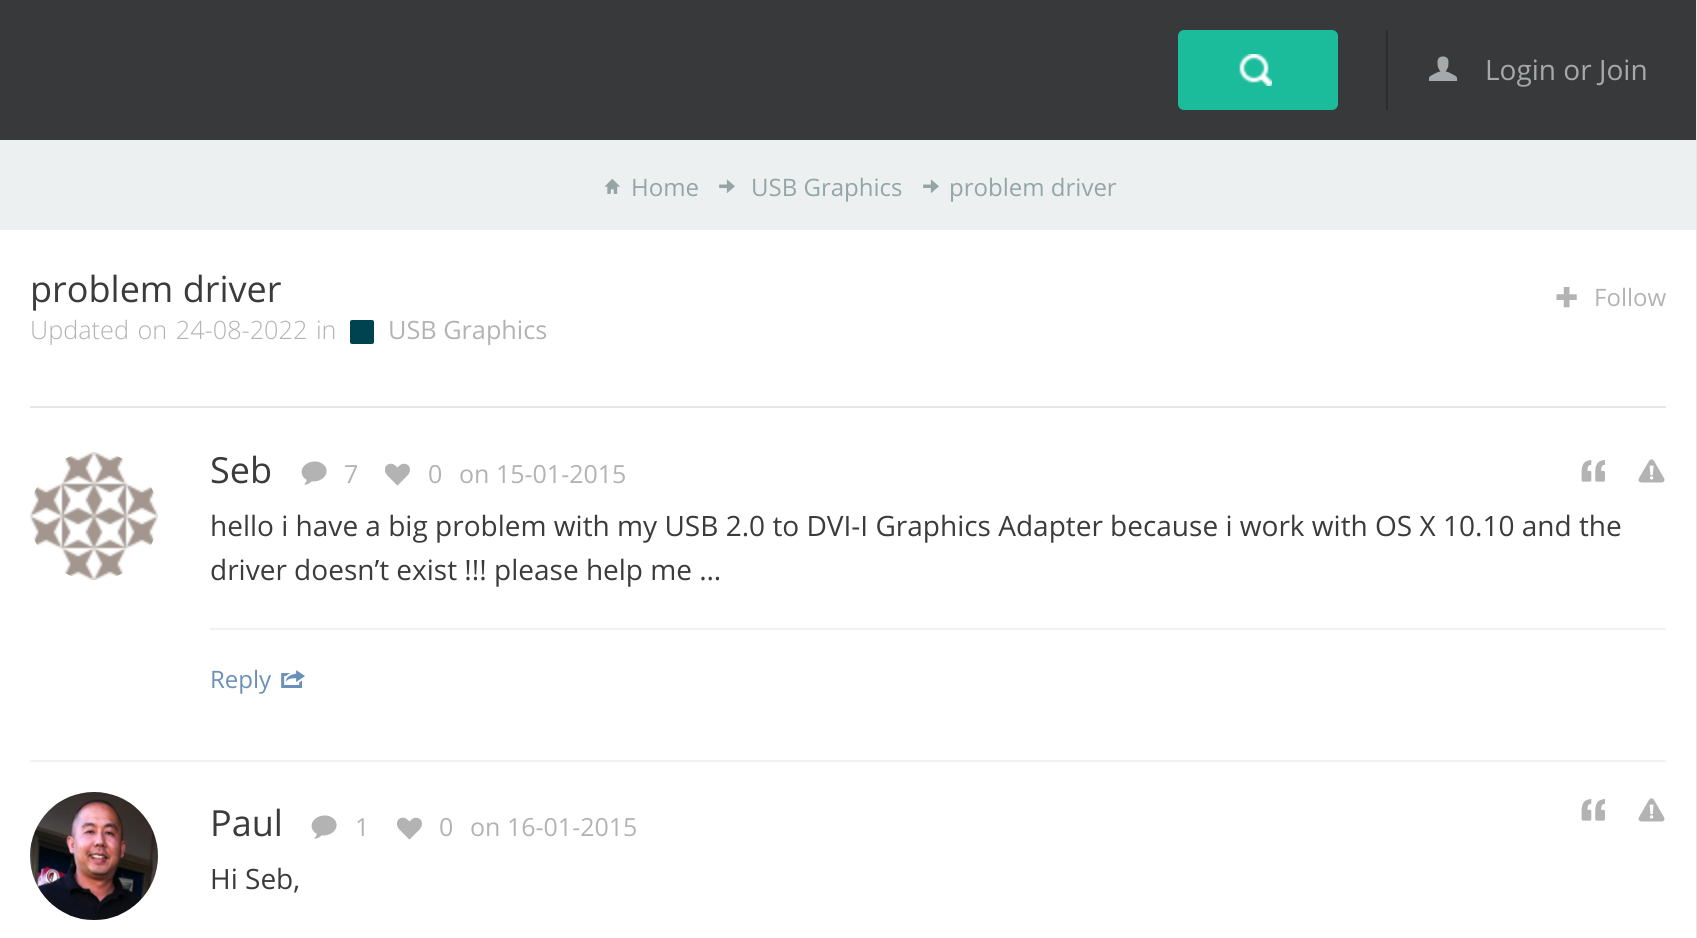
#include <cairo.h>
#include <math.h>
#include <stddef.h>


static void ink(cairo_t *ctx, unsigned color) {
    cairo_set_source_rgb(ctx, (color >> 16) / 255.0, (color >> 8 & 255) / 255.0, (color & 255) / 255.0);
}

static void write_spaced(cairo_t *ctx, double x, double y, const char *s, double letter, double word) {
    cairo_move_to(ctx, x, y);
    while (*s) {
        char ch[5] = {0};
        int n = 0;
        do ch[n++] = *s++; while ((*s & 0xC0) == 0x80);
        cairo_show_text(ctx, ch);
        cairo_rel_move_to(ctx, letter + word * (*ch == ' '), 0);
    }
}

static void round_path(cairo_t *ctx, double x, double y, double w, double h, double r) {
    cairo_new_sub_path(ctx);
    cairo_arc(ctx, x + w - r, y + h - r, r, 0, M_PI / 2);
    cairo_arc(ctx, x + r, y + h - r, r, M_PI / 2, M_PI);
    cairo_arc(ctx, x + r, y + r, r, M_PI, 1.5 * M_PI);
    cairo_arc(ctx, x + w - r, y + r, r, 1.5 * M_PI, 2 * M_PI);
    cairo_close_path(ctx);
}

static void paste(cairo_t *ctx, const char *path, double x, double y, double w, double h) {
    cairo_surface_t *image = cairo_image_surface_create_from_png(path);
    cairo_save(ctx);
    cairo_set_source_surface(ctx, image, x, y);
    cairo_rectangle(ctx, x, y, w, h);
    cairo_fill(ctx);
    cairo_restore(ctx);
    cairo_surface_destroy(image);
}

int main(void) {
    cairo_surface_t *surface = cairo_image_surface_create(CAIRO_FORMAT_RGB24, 1697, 938);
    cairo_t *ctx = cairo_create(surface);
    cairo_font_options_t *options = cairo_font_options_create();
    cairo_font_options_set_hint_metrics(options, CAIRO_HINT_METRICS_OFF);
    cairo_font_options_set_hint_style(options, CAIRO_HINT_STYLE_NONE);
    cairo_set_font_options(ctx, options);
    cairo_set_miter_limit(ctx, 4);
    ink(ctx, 0xFFFFFF);
    cairo_paint(ctx);
    ink(ctx, 0xE5E5E5);
    cairo_rectangle(ctx, 1696, 0, 1, 938);
    cairo_fill(ctx);
    ink(ctx, 0x37393A);
    cairo_rectangle(ctx, 0, 0, 1696, 140);
    cairo_fill(ctx);
    ink(ctx, 0x1ABC9C);
    round_path(ctx, 1178, 30, 160, 80, 6);
    cairo_fill(ctx);
    paste(ctx, "media/1.png", 1239, 54, 33, 32);
    ink(ctx, 0x2C2E2E);
    cairo_rectangle(ctx, 1386, 30, 2, 80);
    cairo_fill(ctx);
    paste(ctx, "media/2.png", 1429, 56, 29, 25);
    cairo_select_font_face(ctx, "Open Sans", CAIRO_FONT_SLANT_NORMAL, CAIRO_FONT_WEIGHT_NORMAL);
    cairo_set_font_size(ctx, 28);
    ink(ctx, 0xA5A9AC);
    cairo_move_to(ctx, 1485, 80);
    cairo_show_text(ctx, "Login or Join");
    ink(ctx, 0xECF0F1);
    cairo_rectangle(ctx, 0, 140, 1696, 90);
    cairo_fill(ctx);
    paste(ctx, "media/3.png", 604, 178, 16, 16);
    cairo_set_font_size(ctx, 24);
    ink(ctx, 0x95A5A6);
    cairo_move_to(ctx, 631, 196);
    cairo_show_text(ctx, "Home");
    cairo_select_font_face(ctx, "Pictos", CAIRO_FONT_SLANT_NORMAL, CAIRO_FONT_WEIGHT_NORMAL);
    cairo_set_font_size(ctx, 19);
    cairo_move_to(ctx, 719, 192);
    cairo_show_text(ctx, "]");
    cairo_select_font_face(ctx, "Open Sans", CAIRO_FONT_SLANT_NORMAL, CAIRO_FONT_WEIGHT_NORMAL);
    cairo_set_font_size(ctx, 24);
    cairo_move_to(ctx, 751, 196);
    cairo_show_text(ctx, "USB Graphics");
    cairo_select_font_face(ctx, "Pictos", CAIRO_FONT_SLANT_NORMAL, CAIRO_FONT_WEIGHT_NORMAL);
    cairo_set_font_size(ctx, 19);
    cairo_move_to(ctx, 923, 192);
    cairo_show_text(ctx, "]");
    cairo_select_font_face(ctx, "Open Sans", CAIRO_FONT_SLANT_NORMAL, CAIRO_FONT_WEIGHT_NORMAL);
    cairo_set_font_size(ctx, 24);
    cairo_move_to(ctx, 949, 196);
    cairo_show_text(ctx, "problem driver");
    cairo_set_font_size(ctx, 36);
    ink(ctx, 0x3B3B3B);
    cairo_move_to(ctx, 30, 302);
    cairo_show_text(ctx, "problem driver");
    cairo_select_font_face(ctx, "Open Sans Light", CAIRO_FONT_SLANT_NORMAL, CAIRO_FONT_WEIGHT_NORMAL);
    cairo_set_font_size(ctx, 25.25);
    ink(ctx, 0xB3B3B3);
    write_spaced(ctx, 30, 339, "Updated on 24-08-2022 in", 0, 2);
    ink(ctx, 0x004350);
    round_path(ctx, 350, 320, 24, 24, 2);
    cairo_fill(ctx);
    cairo_select_font_face(ctx, "Open Sans", CAIRO_FONT_SLANT_NORMAL, CAIRO_FONT_WEIGHT_NORMAL);
    ink(ctx, 0xB3B3B3);
    cairo_move_to(ctx, 388, 339);
    cairo_show_text(ctx, "USB Graphics");
    cairo_select_font_face(ctx, "Pictos", CAIRO_FONT_SLANT_NORMAL, CAIRO_FONT_WEIGHT_NORMAL);
    cairo_set_font_size(ctx, 29);
    cairo_move_to(ctx, 1556, 306);
    cairo_show_text(ctx, "&");
    cairo_select_font_face(ctx, "Open Sans", CAIRO_FONT_SLANT_NORMAL, CAIRO_FONT_WEIGHT_NORMAL);
    cairo_set_font_size(ctx, 24);
    cairo_move_to(ctx, 1594, 306);
    cairo_show_text(ctx, "Follow");
    ink(ctx, 0xE6E6E6);
    cairo_rectangle(ctx, 30, 406, 1636, 2);
    cairo_fill(ctx);
    ink(ctx, 0xF2F2F2);
    cairo_rectangle(ctx, 30, 760, 1636, 2);
    cairo_fill(ctx);
    paste(ctx, "media/4.png", 30, 452, 128, 128);
    cairo_set_font_size(ctx, 36);
    ink(ctx, 0x3B3B3B);
    cairo_move_to(ctx, 210, 483);
    cairo_show_text(ctx, "Seb");
    paste(ctx, "media/5.png", 301, 461, 26, 24);
    cairo_set_font_size(ctx, 25);
    ink(ctx, 0xB3B3B3);
    cairo_move_to(ctx, 344, 483);
    cairo_show_text(ctx, "7");
    paste(ctx, "media/6.png", 385, 463, 25, 23);
    cairo_move_to(ctx, 428, 483);
    cairo_show_text(ctx, "0");
    cairo_move_to(ctx, 459, 483);
    cairo_show_text(ctx, "on 15-01-2015");
    cairo_select_font_face(ctx, "Pictos", CAIRO_FONT_SLANT_NORMAL, CAIRO_FONT_WEIGHT_NORMAL);
    cairo_set_font_size(ctx, 31);
    cairo_move_to(ctx, 1580, 481);
    cairo_show_text(ctx, "\"");
    cairo_move_to(ctx, 1637, 481);
    cairo_show_text(ctx, "!");
    cairo_select_font_face(ctx, "Open Sans", CAIRO_FONT_SLANT_NORMAL, CAIRO_FONT_WEIGHT_NORMAL);
    cairo_set_font_size(ctx, 28);
    ink(ctx, 0x3B3B3B);
    cairo_move_to(ctx, 210, 536);
    cairo_show_text(ctx, "hello i have a big problem with my USB 2.0 to DVI-I Graphics Adapter because i work with OS X 10.10 and the");
    cairo_move_to(ctx, 210, 580);
    cairo_show_text(ctx, "driver doesn’t exist !!! please help me …");
    ink(ctx, 0xF2F2F2);
    cairo_rectangle(ctx, 210, 628, 1456, 2);
    cairo_fill(ctx);
    cairo_set_font_size(ctx, 24);
    ink(ctx, 0x6A90BA);
    cairo_move_to(ctx, 210, 688);
    cairo_show_text(ctx, "Reply");
    paste(ctx, "media/7.png", 281, 670, 24, 18);
    paste(ctx, "media/8.png", 30, 792, 128, 128);
    cairo_set_font_size(ctx, 36);
    ink(ctx, 0x3B3B3B);
    cairo_move_to(ctx, 210, 836);
    cairo_show_text(ctx, "Paul");
    paste(ctx, "media/5.png", 311, 815, 26, 24);
    cairo_set_font_size(ctx, 25);
    ink(ctx, 0xB3B3B3);
    cairo_move_to(ctx, 355, 836);
    cairo_show_text(ctx, "1");
    paste(ctx, "media/6.png", 397, 817, 25, 23);
    cairo_move_to(ctx, 439, 836);
    cairo_show_text(ctx, "0");
    cairo_move_to(ctx, 470, 836);
    cairo_show_text(ctx, "on 16-01-2015");
    cairo_set_font_size(ctx, 28);
    ink(ctx, 0x3B3B3B);
    cairo_move_to(ctx, 210, 889);
    cairo_show_text(ctx, "Hi Seb,");
    cairo_select_font_face(ctx, "Pictos", CAIRO_FONT_SLANT_NORMAL, CAIRO_FONT_WEIGHT_NORMAL);
    cairo_set_font_size(ctx, 31);
    ink(ctx, 0xB3B3B3);
    cairo_move_to(ctx, 1580, 820);
    cairo_show_text(ctx, "\"");
    cairo_move_to(ctx, 1637, 820);
    cairo_show_text(ctx, "!");
    cairo_surface_write_to_png(surface, "image.png");
    cairo_font_options_destroy(options);
    cairo_destroy(ctx);
    cairo_surface_destroy(surface);
    return 0;
}
